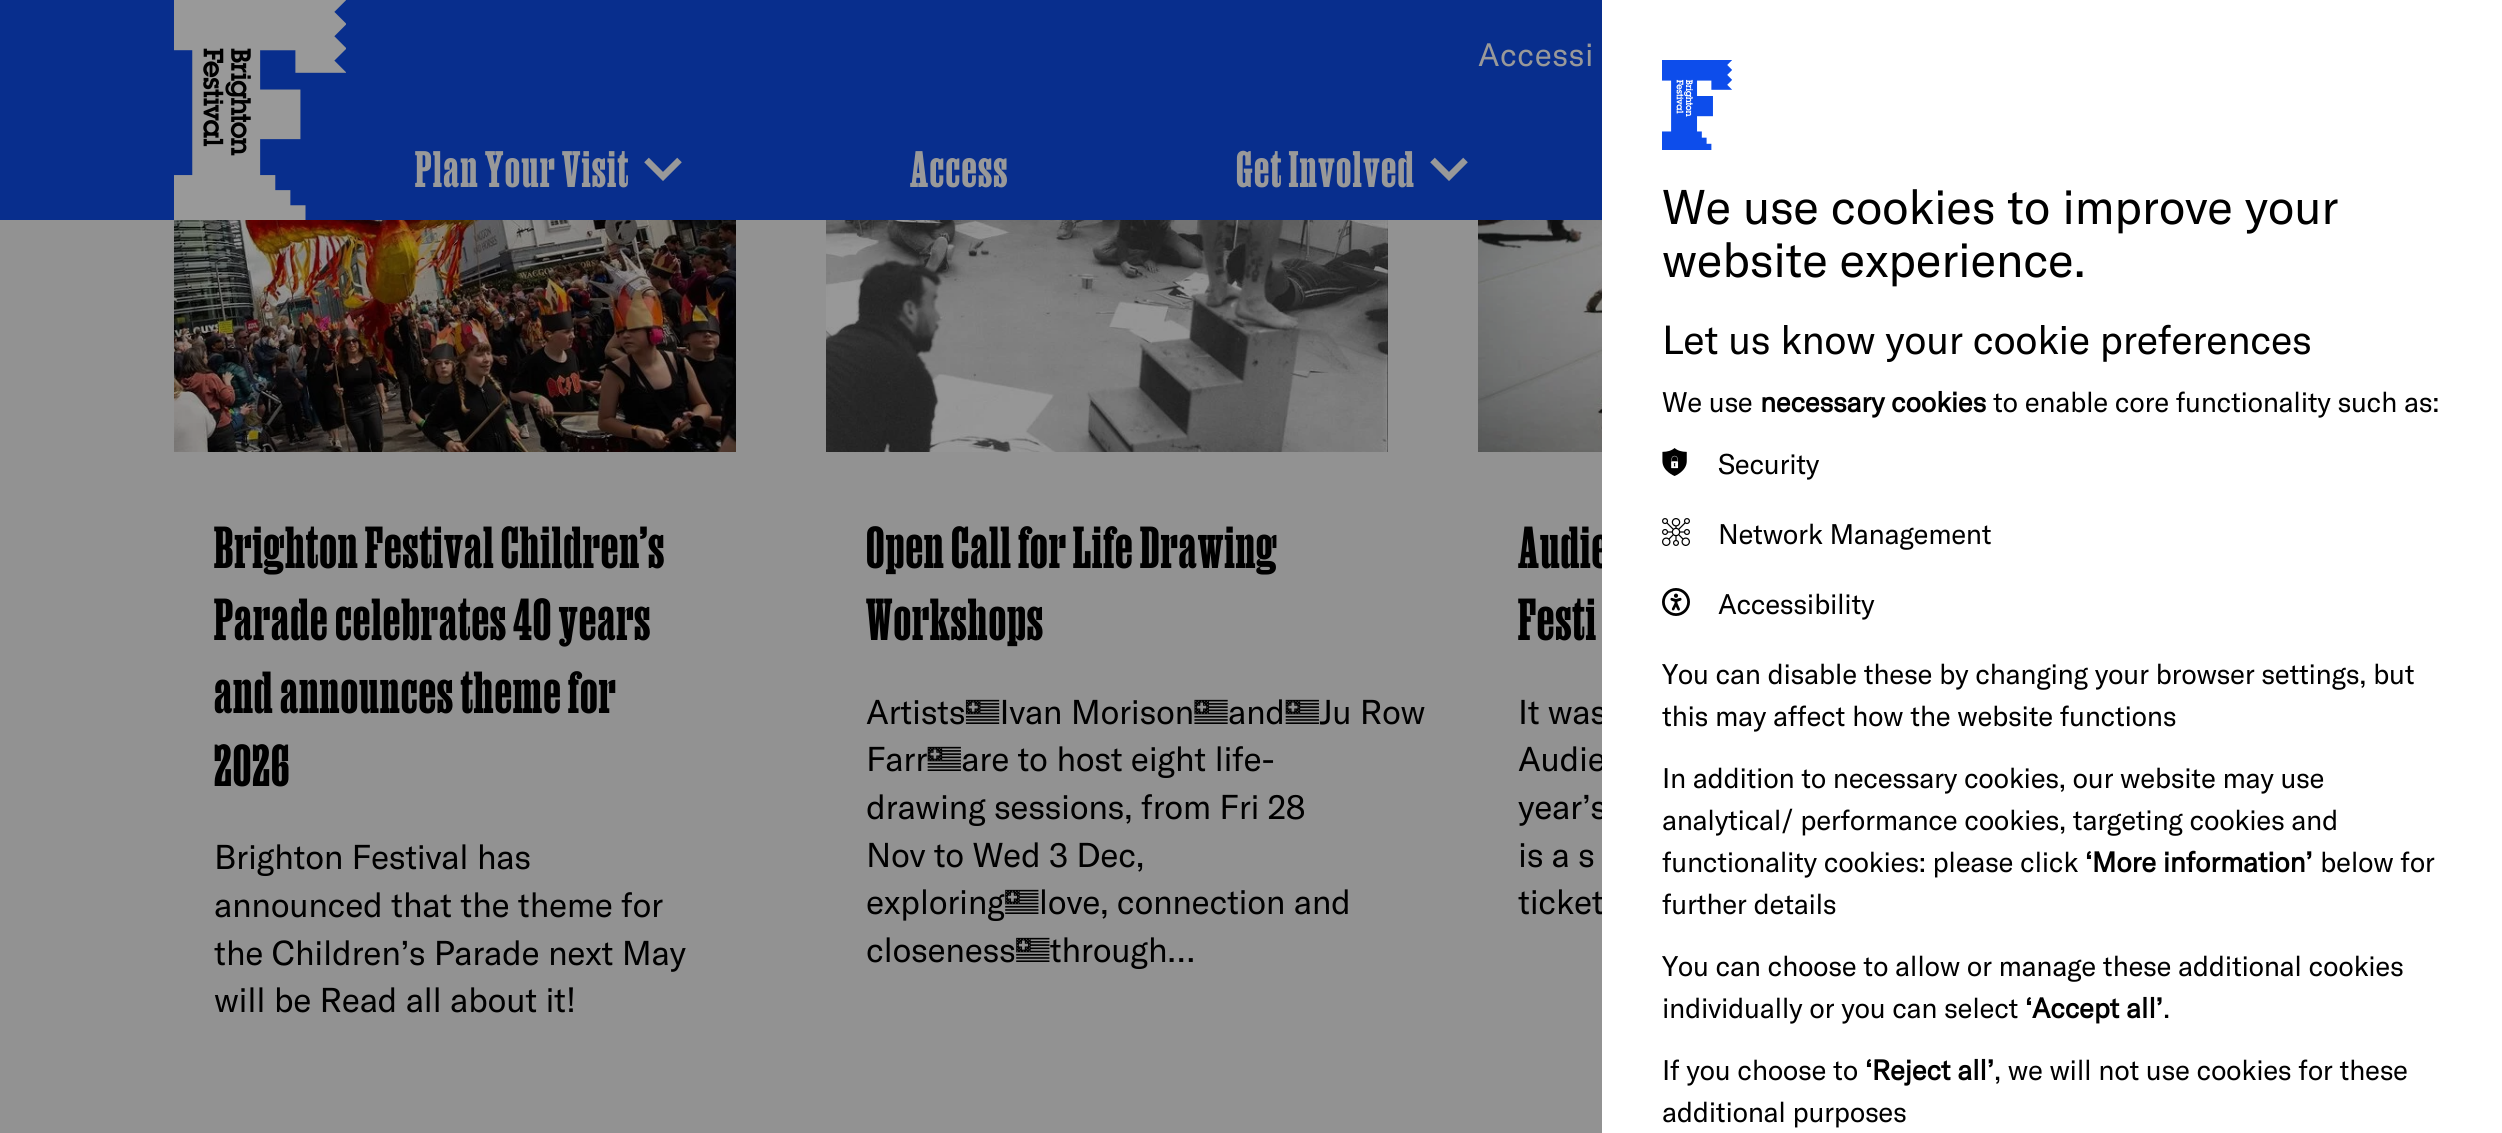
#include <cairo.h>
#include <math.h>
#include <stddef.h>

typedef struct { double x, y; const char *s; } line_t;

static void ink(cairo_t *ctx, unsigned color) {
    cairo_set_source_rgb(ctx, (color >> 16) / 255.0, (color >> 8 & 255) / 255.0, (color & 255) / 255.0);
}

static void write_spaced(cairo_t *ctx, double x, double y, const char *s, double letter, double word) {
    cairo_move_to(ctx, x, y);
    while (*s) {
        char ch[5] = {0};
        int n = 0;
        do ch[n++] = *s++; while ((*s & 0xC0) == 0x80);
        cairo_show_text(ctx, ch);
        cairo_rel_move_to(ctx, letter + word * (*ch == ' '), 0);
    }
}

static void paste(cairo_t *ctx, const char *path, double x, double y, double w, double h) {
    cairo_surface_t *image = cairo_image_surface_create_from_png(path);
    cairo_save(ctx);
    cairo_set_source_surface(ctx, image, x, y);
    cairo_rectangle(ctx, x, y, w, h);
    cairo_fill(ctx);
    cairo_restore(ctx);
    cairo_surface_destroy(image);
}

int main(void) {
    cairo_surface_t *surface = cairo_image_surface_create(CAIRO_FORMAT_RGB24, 2502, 1133);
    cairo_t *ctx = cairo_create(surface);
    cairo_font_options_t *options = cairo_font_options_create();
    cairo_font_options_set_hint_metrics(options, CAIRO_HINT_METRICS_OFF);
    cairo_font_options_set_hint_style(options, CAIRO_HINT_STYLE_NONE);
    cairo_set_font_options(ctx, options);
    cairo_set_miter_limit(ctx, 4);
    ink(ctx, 0x929292);
    cairo_paint(ctx);
    ink(ctx, 0x082E8D);
    cairo_rectangle(ctx, 0, 0, 1602, 220);
    cairo_fill(ctx);
    paste(ctx, "media/1.png", 174, 0, 172, 220);
    cairo_select_font_face(ctx, "GT America", CAIRO_FONT_SLANT_NORMAL, CAIRO_FONT_WEIGHT_NORMAL);
    cairo_set_font_size(ctx, 32);
    ink(ctx, 0x999999);
    write_spaced(ctx, 1478, 66, "Accessi", 0.5, 0);
    cairo_select_font_face(ctx, "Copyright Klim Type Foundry", CAIRO_FONT_SLANT_NORMAL, CAIRO_FONT_WEIGHT_BOLD);
    cairo_set_font_size(ctx, 48.5);
    write_spaced(ctx, 415, 187, "Plan Your Visit", 1.5, 0);
    cairo_new_path(ctx);
    cairo_move_to(ctx, 679.5, 160);
    cairo_line_to(ctx, 663, 176.5);
    cairo_line_to(ctx, 646.5, 160);
    cairo_set_line_width(ctx, 6.5);
    cairo_stroke(ctx);
    write_spaced(ctx, 910, 187, "Access", 1.5, 0);
    write_spaced(ctx, 1236, 187, "Get Involved", 1.5, 0);
    cairo_new_path(ctx);
    cairo_move_to(ctx, 1465.5, 160);
    cairo_line_to(ctx, 1449, 176.5);
    cairo_line_to(ctx, 1432.5, 160);
    cairo_stroke(ctx);
    paste(ctx, "media/2.png", 174, 220, 562, 232);
    cairo_set_font_size(ctx, 56);
    ink(ctx, 0x000000);
    {
        static const line_t items[] = {
            {214, 568, "Brighton Festival Children’s"},
            {214, 640, "Parade celebrates 40 years"},
            {214, 713, "and announces theme for"},
            {214, 786, "2026"},
        };
        for (size_t i = 0; i < sizeof items / sizeof *items; i++) {
            write_spaced(ctx, items[i].x, items[i].y, items[i].s, 1.1, 0);
        }
    }
    cairo_select_font_face(ctx, "GT America", CAIRO_FONT_SLANT_NORMAL, CAIRO_FONT_WEIGHT_NORMAL);
    cairo_set_font_size(ctx, 34);
    {
        static const line_t items[] = {
            {214, 869, "Brighton Festival has"},
            {214, 917, "announced that the theme for"},
            {214, 965, "the Children’s Parade next May"},
            {214, 1012, "will be Read all about it!"},
        };
        for (size_t i = 0; i < sizeof items / sizeof *items; i++) {
            write_spaced(ctx, items[i].x, items[i].y, items[i].s, -0.35, 0);
        }
    }
    paste(ctx, "media/3.png", 826, 220, 562, 232);
    cairo_select_font_face(ctx, "Copyright Klim Type Foundry", CAIRO_FONT_SLANT_NORMAL, CAIRO_FONT_WEIGHT_BOLD);
    cairo_set_font_size(ctx, 56);
    write_spaced(ctx, 866, 568, "Open Call for Life Drawing", 1.1, 0);
    write_spaced(ctx, 866, 640, "Workshops", 1.1, 0);
    cairo_select_font_face(ctx, "GT America", CAIRO_FONT_SLANT_NORMAL, CAIRO_FONT_WEIGHT_NORMAL);
    cairo_set_font_size(ctx, 34);
    {
        static const line_t items[] = {
            {866, 724, "Artists Ivan Morison and Ju Row"},
            {866, 771, "Farr are to host eight life-"},
            {866, 819, "drawing sessions, from Fri 28"},
            {866, 867, "Nov to Wed 3 Dec,"},
            {866, 914, "exploring love, connection and"},
            {866, 962, "closeness through…"},
        };
        for (size_t i = 0; i < sizeof items / sizeof *items; i++) {
            write_spaced(ctx, items[i].x, items[i].y, items[i].s, -0.35, 0);
        }
    }
    paste(ctx, "media/4.png", 1478, 220, 124, 232);
    cairo_select_font_face(ctx, "Copyright Klim Type Foundry", CAIRO_FONT_SLANT_NORMAL, CAIRO_FONT_WEIGHT_BOLD);
    cairo_set_font_size(ctx, 56);
    write_spaced(ctx, 1518, 568, "Audie", 1.1, 0);
    write_spaced(ctx, 1518, 640, "Festi", 1.1, 0);
    cairo_select_font_face(ctx, "GT America", CAIRO_FONT_SLANT_NORMAL, CAIRO_FONT_WEIGHT_NORMAL);
    cairo_set_font_size(ctx, 34);
    {
        static const line_t items[] = {
            {1518, 724, "It was"},
            {1518, 771, "Audie"},
            {1518, 819, "year’s"},
            {1518, 867, "is a s"},
            {1518, 914, "ticket"},
        };
        for (size_t i = 0; i < sizeof items / sizeof *items; i++) {
            write_spaced(ctx, items[i].x, items[i].y, items[i].s, -0.35, 0);
        }
    }
    ink(ctx, 0xFFFFFF);
    cairo_rectangle(ctx, 1602, 0, 900, 1133);
    cairo_fill(ctx);
    paste(ctx, "media/5.png", 1662, 60, 70, 90);
    cairo_set_font_size(ctx, 48);
    ink(ctx, 0x000000);
    write_spaced(ctx, 1662, 224, "We use cookies to improve your", -0.35, 0);
    write_spaced(ctx, 1662, 277, "website experience.", -0.35, 0);
    cairo_set_font_size(ctx, 40);
    write_spaced(ctx, 1662, 354, "Let us know your cookie preferences", -0.35, 0);
    cairo_set_font_size(ctx, 28);
    write_spaced(ctx, 1662, 412, "We use", -0.35, 0);
    cairo_select_font_face(ctx, "GT America", CAIRO_FONT_SLANT_NORMAL, CAIRO_FONT_WEIGHT_BOLD);
    write_spaced(ctx, 1760, 412, "necessary cookies", -0.35, 0);
    cairo_select_font_face(ctx, "GT America", CAIRO_FONT_SLANT_NORMAL, CAIRO_FONT_WEIGHT_NORMAL);
    write_spaced(ctx, 1993, 412, "to enable core functionality such as:", -0.35, 0);
    paste(ctx, "media/6.png", 1662, 448, 25, 28);
    write_spaced(ctx, 1718, 474, "Security", -0.35, 0);
    paste(ctx, "media/7.png", 1662, 518, 28, 28);
    write_spaced(ctx, 1718, 544, "Network Management", -0.35, 0);
    paste(ctx, "media/8.png", 1662, 588, 28, 28);
    {
        static const line_t items[] = {
            {1718, 614, "Accessibility"},
            {1662, 684, "You can disable these by changing your browser settings, but"},
            {1662, 726, "this may affect how the website functions"},
            {1662, 788, "In addition to necessary cookies, our website may use"},
            {1662, 830, "analytical/ performance cookies, targeting cookies and"},
            {1662, 872, "functionality cookies: please click"},
        };
        for (size_t i = 0; i < sizeof items / sizeof *items; i++) {
            write_spaced(ctx, items[i].x, items[i].y, items[i].s, -0.35, 0);
        }
    }
    cairo_select_font_face(ctx, "GT America", CAIRO_FONT_SLANT_NORMAL, CAIRO_FONT_WEIGHT_BOLD);
    write_spaced(ctx, 2085, 872, "‘More information’", -0.35, 0);
    cairo_select_font_face(ctx, "GT America", CAIRO_FONT_SLANT_NORMAL, CAIRO_FONT_WEIGHT_NORMAL);
    {
        static const line_t items[] = {
            {2320, 872, "below for"},
            {1662, 914, "further details"},
            {1662, 976, "You can choose to allow or manage these additional cookies"},
            {1662, 1018, "individually or you can select"},
        };
        for (size_t i = 0; i < sizeof items / sizeof *items; i++) {
            write_spaced(ctx, items[i].x, items[i].y, items[i].s, -0.35, 0);
        }
    }
    cairo_select_font_face(ctx, "GT America", CAIRO_FONT_SLANT_NORMAL, CAIRO_FONT_WEIGHT_BOLD);
    write_spaced(ctx, 2025, 1018, "‘Accept all’", -0.35, 0);
    cairo_select_font_face(ctx, "GT America", CAIRO_FONT_SLANT_NORMAL, CAIRO_FONT_WEIGHT_NORMAL);
    write_spaced(ctx, 2163, 1018, ".", -0.35, 0);
    write_spaced(ctx, 1662, 1080, "If you choose to", -0.35, 0);
    cairo_select_font_face(ctx, "GT America", CAIRO_FONT_SLANT_NORMAL, CAIRO_FONT_WEIGHT_BOLD);
    write_spaced(ctx, 1865, 1080, "‘Reject all’", -0.35, 0);
    cairo_select_font_face(ctx, "GT America", CAIRO_FONT_SLANT_NORMAL, CAIRO_FONT_WEIGHT_NORMAL);
    write_spaced(ctx, 1994, 1080, ", we will not use cookies for these", -0.35, 0);
    write_spaced(ctx, 1662, 1122, "additional purposes", -0.35, 0);
    cairo_surface_write_to_png(surface, "image.png");
    cairo_font_options_destroy(options);
    cairo_destroy(ctx);
    cairo_surface_destroy(surface);
    return 0;
}
